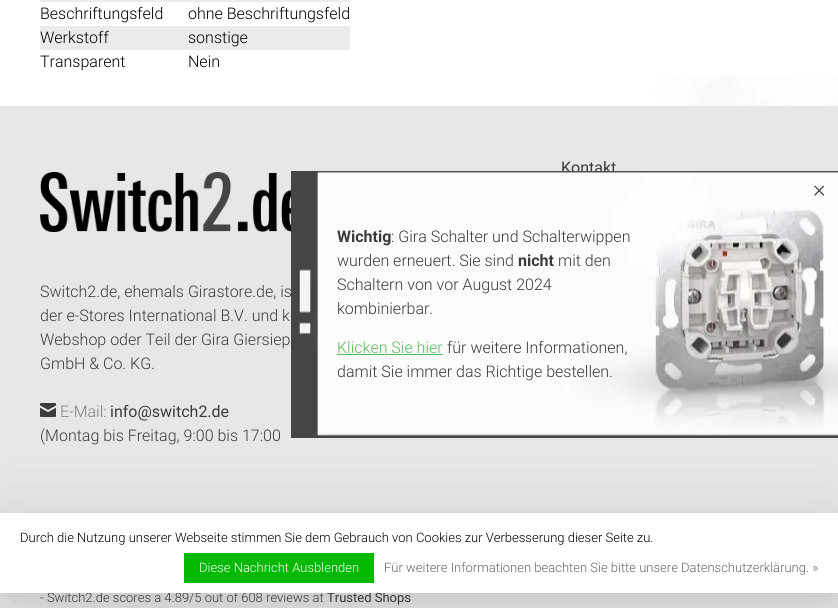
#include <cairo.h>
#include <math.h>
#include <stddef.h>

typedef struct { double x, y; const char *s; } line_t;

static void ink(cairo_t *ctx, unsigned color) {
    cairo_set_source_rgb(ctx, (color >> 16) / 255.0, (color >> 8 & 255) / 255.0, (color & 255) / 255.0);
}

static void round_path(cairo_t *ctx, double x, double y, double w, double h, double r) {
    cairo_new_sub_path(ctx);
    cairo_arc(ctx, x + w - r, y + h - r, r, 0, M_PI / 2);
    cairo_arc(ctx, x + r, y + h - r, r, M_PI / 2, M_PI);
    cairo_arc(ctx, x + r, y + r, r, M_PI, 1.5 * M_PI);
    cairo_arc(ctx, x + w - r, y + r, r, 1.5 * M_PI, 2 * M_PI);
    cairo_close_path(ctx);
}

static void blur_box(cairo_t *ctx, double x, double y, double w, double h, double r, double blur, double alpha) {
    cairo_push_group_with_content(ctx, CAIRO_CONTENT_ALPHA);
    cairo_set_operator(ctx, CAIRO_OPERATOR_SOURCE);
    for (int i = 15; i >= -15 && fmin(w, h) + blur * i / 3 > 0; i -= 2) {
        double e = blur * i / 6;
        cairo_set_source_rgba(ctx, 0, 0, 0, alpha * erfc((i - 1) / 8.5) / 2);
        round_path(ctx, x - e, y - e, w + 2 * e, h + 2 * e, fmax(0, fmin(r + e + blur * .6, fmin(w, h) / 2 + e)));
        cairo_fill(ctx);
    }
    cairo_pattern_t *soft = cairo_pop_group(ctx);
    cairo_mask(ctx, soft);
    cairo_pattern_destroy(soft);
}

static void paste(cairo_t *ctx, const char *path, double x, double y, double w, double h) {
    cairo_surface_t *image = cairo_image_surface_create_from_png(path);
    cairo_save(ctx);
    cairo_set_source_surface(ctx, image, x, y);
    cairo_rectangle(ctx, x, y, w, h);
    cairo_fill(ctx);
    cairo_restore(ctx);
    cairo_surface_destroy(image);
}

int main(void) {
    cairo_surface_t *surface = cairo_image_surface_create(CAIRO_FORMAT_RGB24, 838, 608);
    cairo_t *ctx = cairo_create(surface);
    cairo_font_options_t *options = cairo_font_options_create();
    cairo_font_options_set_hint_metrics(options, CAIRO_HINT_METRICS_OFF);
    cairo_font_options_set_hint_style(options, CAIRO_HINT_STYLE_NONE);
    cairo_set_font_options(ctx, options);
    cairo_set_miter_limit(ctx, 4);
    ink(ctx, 0xFFFFFF);
    cairo_paint(ctx);
    paste(ctx, "media/1.png", 621, 76, 217, 30);
    ink(ctx, 0xECEAEA);
    cairo_rectangle(ctx, 40, 0, 310, 2);
    cairo_fill(ctx);
    cairo_select_font_face(ctx, "Roboto Light", CAIRO_FONT_SLANT_NORMAL, CAIRO_FONT_WEIGHT_NORMAL);
    cairo_set_font_size(ctx, 16);
    ink(ctx, 0x000000);
    cairo_move_to(ctx, 40, 19);
    cairo_show_text(ctx, "Beschriftungsfeld");
    cairo_move_to(ctx, 188, 19);
    cairo_show_text(ctx, "ohne Beschriftungsfeld");
    ink(ctx, 0xECEAEA);
    cairo_rectangle(ctx, 40, 26, 310, 24);
    cairo_fill(ctx);
    ink(ctx, 0x000000);
    {
        static const line_t items[] = {
            {40, 43, "Werkstoff"},
            {188, 43, "sonstige"},
            {40, 67, "Transparent"},
            {188, 67, "Nein"},
        };
        for (size_t i = 0; i < sizeof items / sizeof *items; i++) {
            cairo_move_to(ctx, items[i].x, items[i].y);
            cairo_show_text(ctx, items[i].s);
        }
    }
    ink(ctx, 0xE7E7E7);
    cairo_rectangle(ctx, 0, 106, 838, 502);
    cairo_fill(ctx);
    cairo_select_font_face(ctx, "Roboto", CAIRO_FONT_SLANT_NORMAL, CAIRO_FONT_WEIGHT_NORMAL);
    ink(ctx, 0x3B3B3B);
    cairo_move_to(ctx, 561, 173);
    cairo_show_text(ctx, "Kontakt");
    paste(ctx, "media/2.png", 40, 172, 251, 60);
    cairo_select_font_face(ctx, "Roboto Light", CAIRO_FONT_SLANT_NORMAL, CAIRO_FONT_WEIGHT_NORMAL);
    {
        static const line_t items[] = {
            {40, 297, "Switch2.de, ehemals Girastore.de, is"},
            {40, 321, "der e-Stores International B.V. und k"},
            {40, 345, "Webshop oder Teil der Gira Giersiep"},
            {40, 369, "GmbH & Co. KG."},
        };
        for (size_t i = 0; i < sizeof items / sizeof *items; i++) {
            cairo_move_to(ctx, items[i].x, items[i].y);
            cairo_show_text(ctx, items[i].s);
        }
    }
    paste(ctx, "media/3.png", 40, 403, 16, 14);
    ink(ctx, 0x808080);
    cairo_move_to(ctx, 60, 417);
    cairo_show_text(ctx, "E-Mail:");
    cairo_select_font_face(ctx, "Roboto", CAIRO_FONT_SLANT_NORMAL, CAIRO_FONT_WEIGHT_NORMAL);
    ink(ctx, 0x3B3B3B);
    cairo_move_to(ctx, 110, 417);
    cairo_show_text(ctx, "info@switch2.de");
    cairo_select_font_face(ctx, "Roboto Light", CAIRO_FONT_SLANT_NORMAL, CAIRO_FONT_WEIGHT_NORMAL);
    cairo_move_to(ctx, 40, 441);
    cairo_show_text(ctx, "(Montag bis Freitag, 9:00 bis 17:00");
    cairo_set_font_size(ctx, 13);
    cairo_move_to(ctx, 40, 602);
    cairo_show_text(ctx, "- Switch2.de scores a 4.89/5 out of 608 reviews at");
    cairo_select_font_face(ctx, "Roboto", CAIRO_FONT_SLANT_NORMAL, CAIRO_FONT_WEIGHT_NORMAL);
    cairo_move_to(ctx, 327, 602);
    cairo_show_text(ctx, "Trusted Shops");
    ink(ctx, 0x000000);
    blur_box(ctx, 0, 519, 838, 80, 0, 7.5, 0.05);
    paste(ctx, "media/4.png", 291, 171, 547, 267);
    blur_box(ctx, 6, 533, 826, 68, 0, 43, 0.15);
    ink(ctx, 0xFFFFFF);
    cairo_rectangle(ctx, 0, 513, 838, 80);
    cairo_fill(ctx);
    cairo_select_font_face(ctx, "Roboto Light", CAIRO_FONT_SLANT_NORMAL, CAIRO_FONT_WEIGHT_NORMAL);
    ink(ctx, 0x000000);
    cairo_move_to(ctx, 20, 542);
    cairo_show_text(ctx, "Durch die Nutzung unserer Webseite stimmen Sie dem Gebrauch von Cookies zur Verbesserung dieser Seite zu.");
    ink(ctx, 0x00B900);
    cairo_rectangle(ctx, 184, 553, 190, 30);
    cairo_fill(ctx);
    ink(ctx, 0xFFFFFF);
    cairo_move_to(ctx, 199, 572);
    cairo_show_text(ctx, "Diese Nachricht Ausblenden");
    ink(ctx, 0x666666);
    cairo_move_to(ctx, 384, 572);
    cairo_show_text(ctx, "Für weitere Informationen beachten Sie bitte unsere Datenschutzerklärung. »");
    cairo_set_font_size(ctx, 24);
    ink(ctx, 0x454545);
    cairo_move_to(ctx, 813, 197);
    cairo_show_text(ctx, "×");
    cairo_select_font_face(ctx, "Roboto", CAIRO_FONT_SLANT_NORMAL, CAIRO_FONT_WEIGHT_BOLD);
    cairo_set_font_size(ctx, 16);
    ink(ctx, 0x3B3B3B);
    cairo_move_to(ctx, 337, 242);
    cairo_show_text(ctx, "Wichtig");
    cairo_select_font_face(ctx, "Roboto Light", CAIRO_FONT_SLANT_NORMAL, CAIRO_FONT_WEIGHT_NORMAL);
    cairo_move_to(ctx, 391, 242);
    cairo_show_text(ctx, ": Gira Schalter und Schalterwippen");
    cairo_move_to(ctx, 337, 266);
    cairo_show_text(ctx, "wurden erneuert. Sie sind");
    cairo_select_font_face(ctx, "Roboto", CAIRO_FONT_SLANT_NORMAL, CAIRO_FONT_WEIGHT_BOLD);
    cairo_move_to(ctx, 518, 266);
    cairo_show_text(ctx, "nicht");
    cairo_select_font_face(ctx, "Roboto Light", CAIRO_FONT_SLANT_NORMAL, CAIRO_FONT_WEIGHT_NORMAL);
    {
        static const line_t items[] = {
            {558, 266, "mit den"},
            {337, 290, "Schaltern von vor August 2024"},
            {337, 314, "kombinierbar."},
        };
        for (size_t i = 0; i < sizeof items / sizeof *items; i++) {
            cairo_move_to(ctx, items[i].x, items[i].y);
            cairo_show_text(ctx, items[i].s);
        }
    }
    ink(ctx, 0x60B960);
    cairo_move_to(ctx, 337, 353);
    cairo_show_text(ctx, "Klicken Sie hier");
    cairo_rectangle(ctx, 337, 354, 106, 1);
    cairo_fill(ctx);
    ink(ctx, 0x3B3B3B);
    cairo_move_to(ctx, 447, 353);
    cairo_show_text(ctx, "für weitere Informationen,");
    cairo_move_to(ctx, 337, 377);
    cairo_show_text(ctx, "damit Sie immer das Richtige bestellen.");
    cairo_surface_write_to_png(surface, "image.png");
    cairo_font_options_destroy(options);
    cairo_destroy(ctx);
    cairo_surface_destroy(surface);
    return 0;
}
